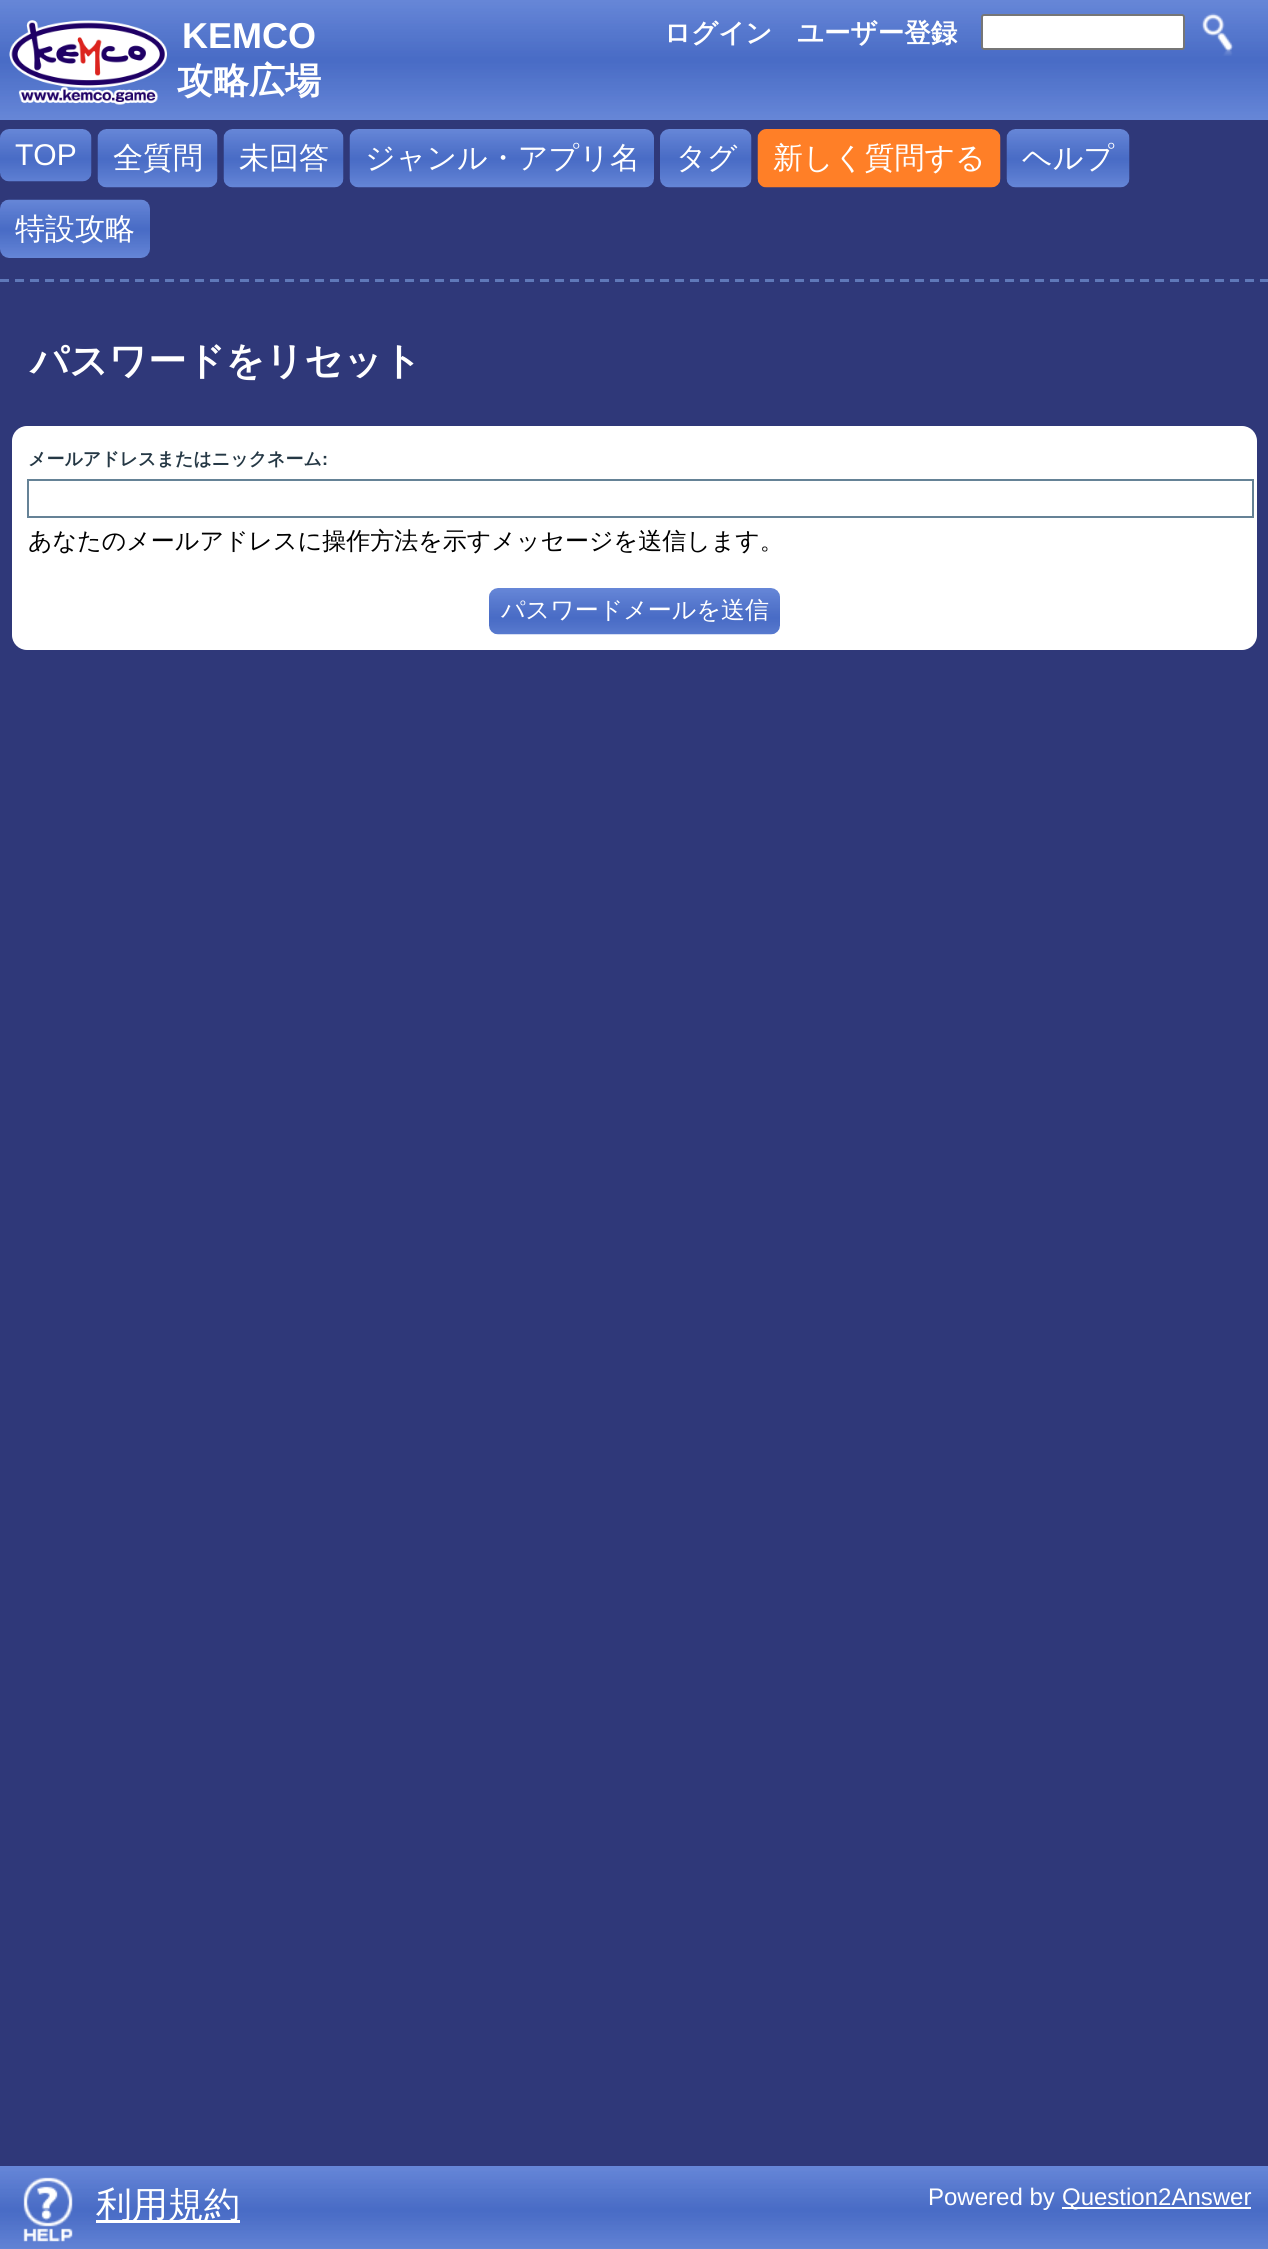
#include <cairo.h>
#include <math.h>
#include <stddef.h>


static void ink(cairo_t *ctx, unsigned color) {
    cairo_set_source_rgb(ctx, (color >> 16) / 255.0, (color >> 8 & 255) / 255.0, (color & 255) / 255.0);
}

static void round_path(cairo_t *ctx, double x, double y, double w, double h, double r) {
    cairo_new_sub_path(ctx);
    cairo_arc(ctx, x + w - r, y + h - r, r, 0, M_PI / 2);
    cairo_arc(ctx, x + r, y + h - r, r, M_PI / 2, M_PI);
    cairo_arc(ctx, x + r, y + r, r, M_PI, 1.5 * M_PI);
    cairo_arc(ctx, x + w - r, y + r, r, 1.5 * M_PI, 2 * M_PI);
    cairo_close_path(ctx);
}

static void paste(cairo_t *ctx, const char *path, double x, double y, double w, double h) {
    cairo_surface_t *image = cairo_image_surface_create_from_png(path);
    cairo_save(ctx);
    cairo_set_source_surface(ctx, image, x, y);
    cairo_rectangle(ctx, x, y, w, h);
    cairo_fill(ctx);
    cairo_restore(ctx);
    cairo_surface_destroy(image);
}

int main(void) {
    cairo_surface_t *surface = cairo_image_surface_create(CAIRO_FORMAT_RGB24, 1268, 2249);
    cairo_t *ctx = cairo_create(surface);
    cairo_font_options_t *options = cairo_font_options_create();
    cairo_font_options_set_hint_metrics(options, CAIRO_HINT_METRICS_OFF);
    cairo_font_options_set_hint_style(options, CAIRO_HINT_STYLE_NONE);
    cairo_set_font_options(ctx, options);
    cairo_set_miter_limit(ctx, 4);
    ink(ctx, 0x2F3879);
    cairo_paint(ctx);
    paste(ctx, "media/1.png", 0, 0, 1268, 120);
    paste(ctx, "media/2.png", 9, 20, 158, 85);
    cairo_select_font_face(ctx, "Liberation Sans", CAIRO_FONT_SLANT_NORMAL, CAIRO_FONT_WEIGHT_BOLD);
    cairo_set_font_size(ctx, 36);
    ink(ctx, 0xFFFFFF);
    cairo_move_to(ctx, 182, 48);
    cairo_show_text(ctx, "KEMCO");
    cairo_select_font_face(ctx, "WenQuanYi Zen Hei", CAIRO_FONT_SLANT_NORMAL, CAIRO_FONT_WEIGHT_BOLD);
    cairo_move_to(ctx, 177, 93);
    cairo_show_text(ctx, "攻略広場");
    cairo_set_font_size(ctx, 26.5);
    cairo_move_to(ctx, 664, 42);
    cairo_show_text(ctx, "ログイン");
    cairo_move_to(ctx, 797, 42);
    cairo_show_text(ctx, "ユーザー登録");
    round_path(ctx, 982, 15, 202, 34, 2);
    cairo_fill_preserve(ctx);
    ink(ctx, 0x767676);
    cairo_stroke(ctx);
    paste(ctx, "media/3.png", 1201, 13, 33, 43);
    paste(ctx, "media/4.png", 0, 129, 92, 53);
    cairo_select_font_face(ctx, "Liberation Sans", CAIRO_FONT_SLANT_NORMAL, CAIRO_FONT_WEIGHT_NORMAL);
    cairo_set_font_size(ctx, 30);
    ink(ctx, 0xFFFFFF);
    cairo_move_to(ctx, 15, 165);
    cairo_show_text(ctx, "TOP");
    paste(ctx, "media/5.png", 97, 129, 121, 59);
    cairo_select_font_face(ctx, "WenQuanYi Zen Hei Medium", CAIRO_FONT_SLANT_NORMAL, CAIRO_FONT_WEIGHT_NORMAL);
    cairo_move_to(ctx, 113, 168);
    cairo_show_text(ctx, "全質問");
    paste(ctx, "media/5.png", 223, 129, 121, 59);
    cairo_move_to(ctx, 239, 168);
    cairo_show_text(ctx, "未回答");
    paste(ctx, "media/6.png", 349, 129, 305, 59);
    cairo_move_to(ctx, 365, 168);
    cairo_show_text(ctx, "ジャンル・アプリ名");
    paste(ctx, "media/7.png", 660, 129, 92, 59);
    cairo_move_to(ctx, 676, 168);
    cairo_show_text(ctx, "タグ");
    paste(ctx, "media/8.png", 757, 129, 244, 59);
    cairo_move_to(ctx, 773, 168);
    cairo_show_text(ctx, "新しく質問する");
    paste(ctx, "media/9.png", 1006, 129, 124, 59);
    cairo_move_to(ctx, 1022, 168);
    cairo_show_text(ctx, "ヘルプ");
    paste(ctx, "media/10.png", 0, 199, 150, 59);
    cairo_move_to(ctx, 15, 239);
    cairo_show_text(ctx, "特設攻略");
    cairo_new_path(ctx);
    cairo_move_to(ctx, 0, 280.5);
    cairo_line_to(ctx, 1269, 280.5);
    ink(ctx, 0x5F78B9);
    cairo_set_line_width(ctx, 3);
    cairo_set_dash(ctx, (double[]){9, 6}, 2, 0);
    cairo_stroke(ctx);
    cairo_select_font_face(ctx, "WenQuanYi Zen Hei", CAIRO_FONT_SLANT_NORMAL, CAIRO_FONT_WEIGHT_BOLD);
    cairo_set_font_size(ctx, 38.4);
    ink(ctx, 0xFFFFFF);
    cairo_move_to(ctx, 30, 374);
    cairo_show_text(ctx, "パスワードをリセット");
    round_path(ctx, 12, 426, 1245, 224, 15);
    cairo_fill(ctx);
    cairo_set_font_size(ctx, 18);
    ink(ctx, 0x253845);
    cairo_move_to(ctx, 28, 465);
    cairo_show_text(ctx, "メールアドレスまたはニックネーム");
    cairo_select_font_face(ctx, "Liberation Sans", CAIRO_FONT_SLANT_NORMAL, CAIRO_FONT_WEIGHT_BOLD);
    cairo_move_to(ctx, 322, 465);
    cairo_show_text(ctx, ":");
    cairo_rectangle(ctx, 28, 480, 1225, 37);
    ink(ctx, 0x658296);
    cairo_set_line_width(ctx, 2);
    cairo_set_dash(ctx, NULL, 0, 0);
    cairo_stroke(ctx);
    cairo_select_font_face(ctx, "WenQuanYi Zen Hei Medium", CAIRO_FONT_SLANT_NORMAL, CAIRO_FONT_WEIGHT_NORMAL);
    cairo_set_font_size(ctx, 24);
    ink(ctx, 0x000000);
    cairo_move_to(ctx, 28, 549);
    cairo_show_text(ctx, "あなたのメールアドレスに操作方法を示すメッセージを送信します。");
    paste(ctx, "media/11.png", 489, 588, 291, 47);
    ink(ctx, 0xFFFFFF);
    cairo_move_to(ctx, 501, 618);
    cairo_show_text(ctx, "パスワードメールを送信");
    paste(ctx, "media/12.png", 0, 2166, 1268, 83);
    paste(ctx, "media/13.png", 23, 2177, 50, 65);
    cairo_rectangle(ctx, 96, 2220, 144, 3);
    cairo_fill(ctx);
    cairo_set_font_size(ctx, 36);
    cairo_move_to(ctx, 96, 2217);
    cairo_show_text(ctx, "利用規約");
    cairo_select_font_face(ctx, "Liberation Sans", CAIRO_FONT_SLANT_NORMAL, CAIRO_FONT_WEIGHT_NORMAL);
    cairo_set_font_size(ctx, 24);
    cairo_move_to(ctx, 928, 2205);
    cairo_show_text(ctx, "Powered by");
    cairo_rectangle(ctx, 1062, 2207, 189, 2);
    cairo_fill(ctx);
    cairo_move_to(ctx, 1062, 2205);
    cairo_show_text(ctx, "Question2Answer");
    cairo_surface_write_to_png(surface, "image.png");
    cairo_font_options_destroy(options);
    cairo_destroy(ctx);
    cairo_surface_destroy(surface);
    return 0;
}
